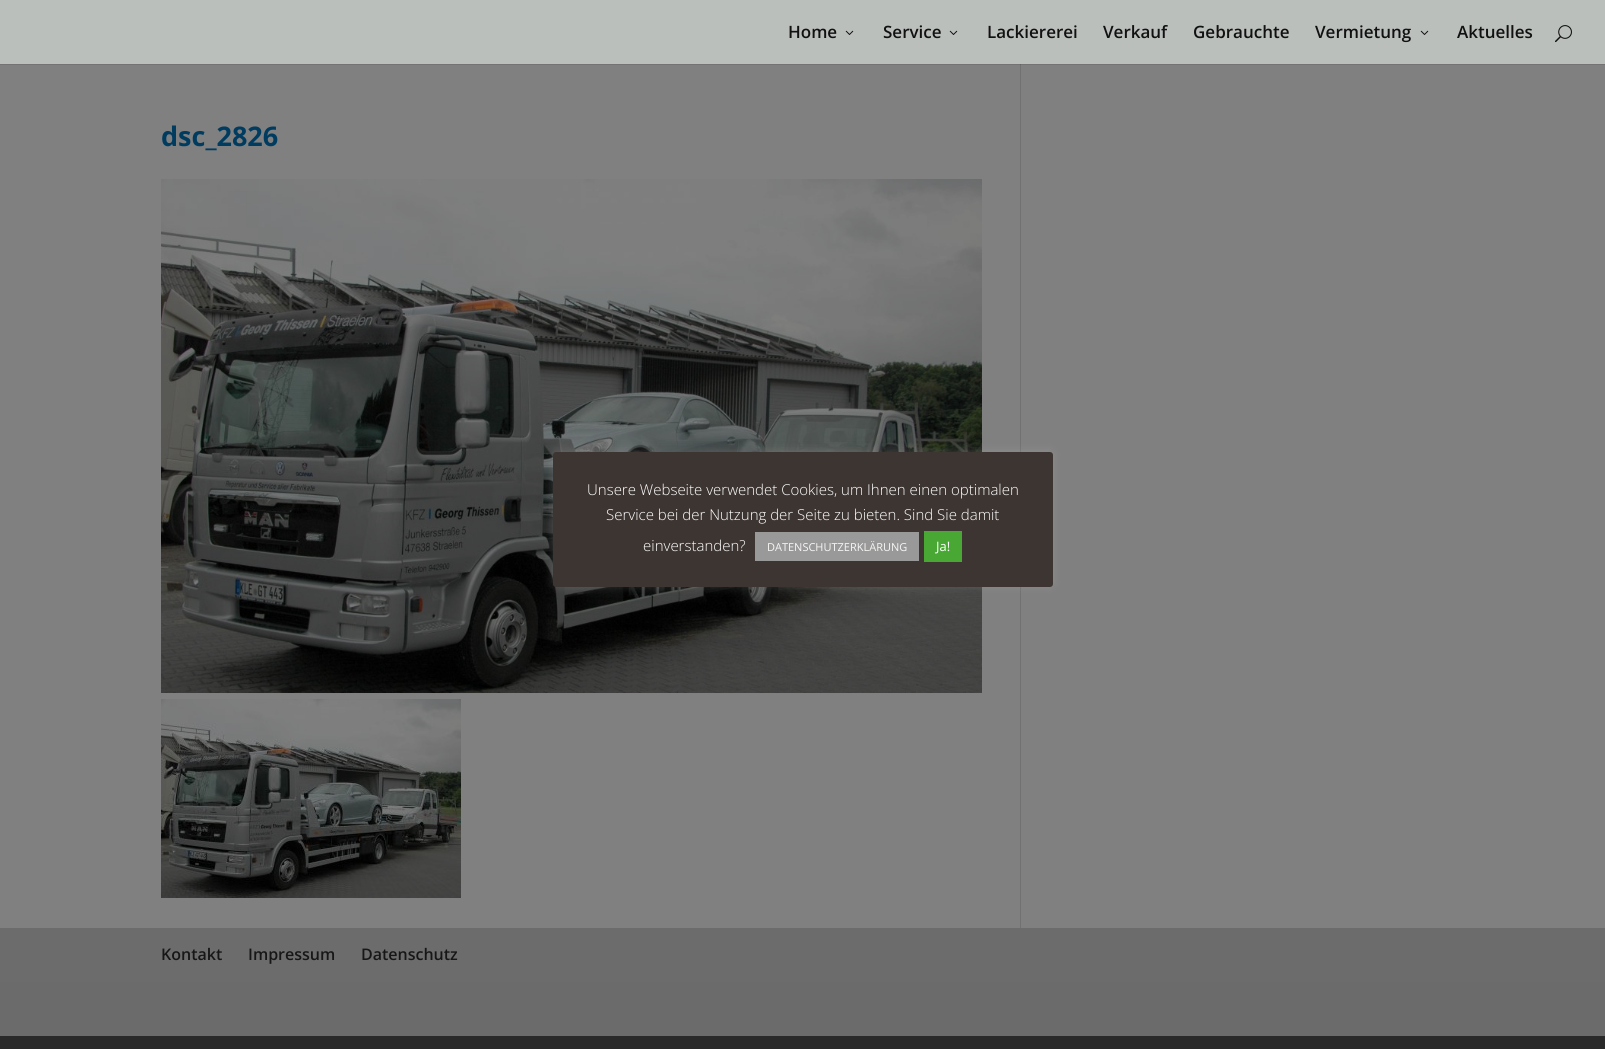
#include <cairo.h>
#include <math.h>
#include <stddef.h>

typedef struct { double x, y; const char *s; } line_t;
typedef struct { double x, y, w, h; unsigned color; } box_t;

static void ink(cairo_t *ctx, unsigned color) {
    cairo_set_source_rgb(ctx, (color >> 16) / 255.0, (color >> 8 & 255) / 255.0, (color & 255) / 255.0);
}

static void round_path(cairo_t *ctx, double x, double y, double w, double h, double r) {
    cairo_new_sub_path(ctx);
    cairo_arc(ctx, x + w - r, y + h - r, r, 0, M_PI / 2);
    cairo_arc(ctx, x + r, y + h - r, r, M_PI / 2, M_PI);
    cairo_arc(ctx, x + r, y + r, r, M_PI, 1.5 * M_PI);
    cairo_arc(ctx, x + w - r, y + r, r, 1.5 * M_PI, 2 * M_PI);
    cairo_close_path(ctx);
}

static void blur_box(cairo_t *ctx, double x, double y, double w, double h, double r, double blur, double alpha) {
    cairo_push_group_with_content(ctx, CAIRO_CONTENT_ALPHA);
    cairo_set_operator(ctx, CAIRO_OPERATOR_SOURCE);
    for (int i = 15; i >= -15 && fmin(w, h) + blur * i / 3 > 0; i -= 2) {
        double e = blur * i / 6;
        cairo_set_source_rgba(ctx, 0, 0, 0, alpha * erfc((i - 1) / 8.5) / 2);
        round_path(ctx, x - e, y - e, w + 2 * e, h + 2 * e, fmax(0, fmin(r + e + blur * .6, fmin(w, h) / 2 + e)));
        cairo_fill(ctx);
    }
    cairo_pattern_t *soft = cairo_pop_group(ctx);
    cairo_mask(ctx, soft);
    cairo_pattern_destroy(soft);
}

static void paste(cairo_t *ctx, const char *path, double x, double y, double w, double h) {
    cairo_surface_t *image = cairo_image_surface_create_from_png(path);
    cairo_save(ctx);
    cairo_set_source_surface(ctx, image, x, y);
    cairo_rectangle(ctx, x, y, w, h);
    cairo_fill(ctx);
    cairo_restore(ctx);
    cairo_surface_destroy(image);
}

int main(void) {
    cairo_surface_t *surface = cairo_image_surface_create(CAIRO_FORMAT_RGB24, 1605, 1049);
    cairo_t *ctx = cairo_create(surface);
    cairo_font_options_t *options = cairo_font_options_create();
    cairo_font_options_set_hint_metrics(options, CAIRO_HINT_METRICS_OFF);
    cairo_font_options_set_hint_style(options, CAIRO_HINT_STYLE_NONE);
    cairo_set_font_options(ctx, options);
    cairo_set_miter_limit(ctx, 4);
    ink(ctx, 0x292929);
    cairo_paint(ctx);
    ink(ctx, 0xBBBFBC);
    cairo_rectangle(ctx, 0, 0, 1605, 64);
    cairo_fill(ctx);
    cairo_select_font_face(ctx, "Open Sans SemiBold", CAIRO_FONT_SLANT_NORMAL, CAIRO_FONT_WEIGHT_NORMAL);
    cairo_set_font_size(ctx, 17);
    ink(ctx, 0x111111);
    cairo_move_to(ctx, 788, 38);
    cairo_show_text(ctx, "Home");
    paste(ctx, "media/1.png", 845, 30, 9, 5);
    cairo_move_to(ctx, 883, 38);
    cairo_show_text(ctx, "Service");
    paste(ctx, "media/1.png", 949, 30, 9, 5);
    {
        static const line_t items[] = {
            {987, 38, "Lackiererei"},
            {1103, 38, "Verkauf"},
            {1193, 38, "Gebrauchte"},
            {1315, 38, "Vermietung"},
        };
        for (size_t i = 0; i < sizeof items / sizeof *items; i++) {
            cairo_move_to(ctx, items[i].x, items[i].y);
            cairo_show_text(ctx, items[i].s);
        }
    }
    paste(ctx, "media/1.png", 1420, 30, 9, 5);
    cairo_move_to(ctx, 1457, 38);
    cairo_show_text(ctx, "Aktuelles");
    paste(ctx, "media/2.png", 1555, 25, 17, 18);
    ink(ctx, 0x808080);
    cairo_rectangle(ctx, 0, 65, 1605, 863);
    cairo_fill(ctx);
    ink(ctx, 0x737373);
    cairo_rectangle(ctx, 0, 64, 1605, 1);
    cairo_fill(ctx);
    cairo_select_font_face(ctx, "Open Sans", CAIRO_FONT_SLANT_NORMAL, CAIRO_FONT_WEIGHT_BOLD);
    cairo_set_font_size(ctx, 27);
    ink(ctx, 0x003C60);
    cairo_move_to(ctx, 161, 146);
    cairo_show_text(ctx, "dsc_2826");
    paste(ctx, "media/3.png", 161, 179, 821, 514);
    paste(ctx, "media/4.png", 161, 699, 300, 199);
    {
        static const box_t items[] = {
            {1020, 64, 1, 864, 0x717171},
            {1020, 64, 1, 1, 0x666666},
            {0, 982, 1605, 54, 0x6B6B6B},
            {0, 928, 1605, 54, 0x6C6C6C},
        };
        for (size_t i = 0; i < sizeof items / sizeof *items; i++) {
            ink(ctx, items[i].color);
            cairo_rectangle(ctx, items[i].x, items[i].y, items[i].w, items[i].h);
            cairo_fill(ctx);
        }
    }
    cairo_select_font_face(ctx, "Open Sans SemiBold", CAIRO_FONT_SLANT_NORMAL, CAIRO_FONT_WEIGHT_NORMAL);
    cairo_set_font_size(ctx, 16);
    ink(ctx, 0x171717);
    {
        static const line_t items[] = {
            {161, 960, "Kontakt"},
            {248, 960, "Impressum"},
            {361, 960, "Datenschutz"},
        };
        for (size_t i = 0; i < sizeof items / sizeof *items; i++) {
            cairo_move_to(ctx, items[i].x, items[i].y);
            cairo_show_text(ctx, items[i].s);
        }
    }
    ink(ctx, 0xACABAB);
    blur_box(ctx, 553, 451, 500, 135, 3, 5, 0.3);
    ink(ctx, 0x3D3532);
    round_path(ctx, 553, 452, 500, 135, 3);
    cairo_fill(ctx);
    cairo_select_font_face(ctx, "Open Sans Light", CAIRO_FONT_SLANT_NORMAL, CAIRO_FONT_WEIGHT_NORMAL);
    cairo_set_font_size(ctx, 15);
    ink(ctx, 0xFFFFFF);
    {
        static const line_t items[] = {
            {587, 495, "Unsere Webseite verwendet Cookies, um Ihnen einen optimalen"},
            {606, 520, "Service bei der Nutzung der Seite zu bieten. Sind Sie damit"},
            {643, 551, "einverstanden?"},
        };
        for (size_t i = 0; i < sizeof items / sizeof *items; i++) {
            cairo_move_to(ctx, items[i].x, items[i].y);
            cairo_show_text(ctx, items[i].s);
        }
    }
    ink(ctx, 0x999999);
    cairo_rectangle(ctx, 755, 532, 164, 29);
    cairo_fill(ctx);
    cairo_select_font_face(ctx, "Open Sans", CAIRO_FONT_SLANT_NORMAL, CAIRO_FONT_WEIGHT_NORMAL);
    cairo_set_font_size(ctx, 11);
    ink(ctx, 0xF7F6F4);
    cairo_move_to(ctx, 767, 551);
    cairo_show_text(ctx, "DATENSCHUTZERKLÄRUNG");
    ink(ctx, 0x49A834);
    cairo_rectangle(ctx, 924, 531, 38, 31);
    cairo_fill(ctx);
    cairo_set_font_size(ctx, 13);
    ink(ctx, 0xFFFFFF);
    cairo_move_to(ctx, 936, 551);
    cairo_show_text(ctx, "Ja!");
    cairo_surface_write_to_png(surface, "image.png");
    cairo_font_options_destroy(options);
    cairo_destroy(ctx);
    cairo_surface_destroy(surface);
    return 0;
}
